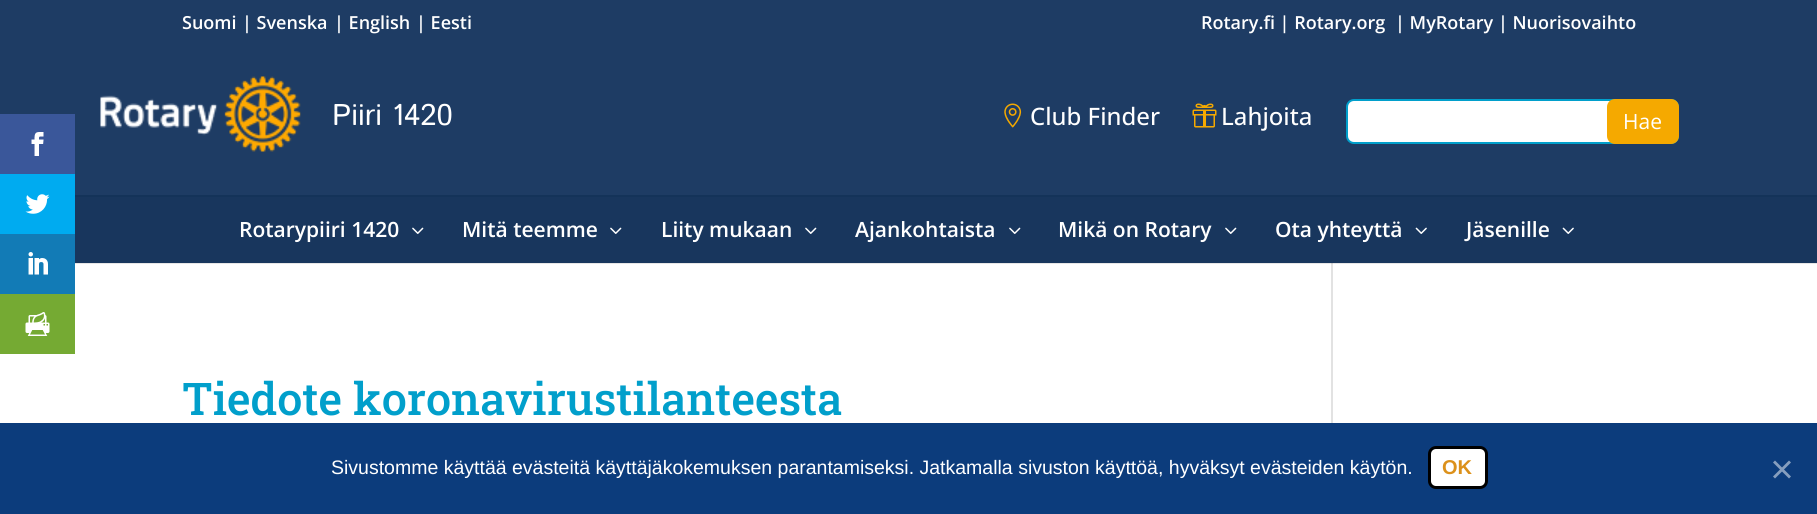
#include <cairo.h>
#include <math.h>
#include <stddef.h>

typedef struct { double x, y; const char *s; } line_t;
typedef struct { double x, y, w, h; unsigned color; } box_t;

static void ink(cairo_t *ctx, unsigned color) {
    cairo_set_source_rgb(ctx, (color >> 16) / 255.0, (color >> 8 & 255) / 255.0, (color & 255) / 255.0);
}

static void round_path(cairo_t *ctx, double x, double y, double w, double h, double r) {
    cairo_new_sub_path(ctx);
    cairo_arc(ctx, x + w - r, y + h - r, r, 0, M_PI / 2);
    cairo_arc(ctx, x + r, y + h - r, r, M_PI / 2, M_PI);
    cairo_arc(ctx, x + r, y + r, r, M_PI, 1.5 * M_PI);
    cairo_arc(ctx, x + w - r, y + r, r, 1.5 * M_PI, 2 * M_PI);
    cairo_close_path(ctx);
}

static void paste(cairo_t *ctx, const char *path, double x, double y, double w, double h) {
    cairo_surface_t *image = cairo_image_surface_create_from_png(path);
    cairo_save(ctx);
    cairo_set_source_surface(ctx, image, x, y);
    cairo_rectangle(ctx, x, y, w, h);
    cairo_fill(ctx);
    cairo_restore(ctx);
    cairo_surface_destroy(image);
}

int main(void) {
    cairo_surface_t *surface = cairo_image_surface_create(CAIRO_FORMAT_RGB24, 1817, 514);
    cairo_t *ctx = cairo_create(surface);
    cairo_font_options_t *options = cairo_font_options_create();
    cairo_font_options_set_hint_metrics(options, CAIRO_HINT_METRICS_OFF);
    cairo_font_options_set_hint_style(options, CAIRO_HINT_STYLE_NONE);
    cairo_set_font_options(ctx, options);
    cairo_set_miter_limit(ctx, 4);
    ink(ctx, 0xFFFFFF);
    cairo_paint(ctx);
    {
        static const box_t items[] = {
            {75, 263, 1742, 1, 0xE6E6E6},
            {0, 0, 1817, 195, 0x1E3C64},
            {0, 114, 75, 60, 0x3A579A},
        };
        for (size_t i = 0; i < sizeof items / sizeof *items; i++) {
            ink(ctx, items[i].color);
            cairo_rectangle(ctx, items[i].x, items[i].y, items[i].w, items[i].h);
            cairo_fill(ctx);
        }
    }
    paste(ctx, "media/1.png", 31, 132, 13, 24);
    ink(ctx, 0x00ABF0);
    cairo_rectangle(ctx, 0, 174, 75, 60);
    cairo_fill(ctx);
    paste(ctx, "media/2.png", 25, 194, 25, 20);
    ink(ctx, 0x127BB6);
    cairo_rectangle(ctx, 0, 234, 75, 60);
    cairo_fill(ctx);
    paste(ctx, "media/3.png", 28, 252, 20, 23);
    ink(ctx, 0x75AA33);
    cairo_rectangle(ctx, 0, 294, 75, 60);
    cairo_fill(ctx);
    paste(ctx, "media/4.png", 25, 312, 25, 24);
    cairo_select_font_face(ctx, "Open Sans SemiBold", CAIRO_FONT_SLANT_NORMAL, CAIRO_FONT_WEIGHT_NORMAL);
    cairo_set_font_size(ctx, 18);
    ink(ctx, 0xFFFFFF);
    {
        static const line_t items[] = {
            {182, 29, "Suomi"},
            {242, 29, "| Svenska"},
            {334, 29, "| English"},
            {416, 29, "| Eesti"},
            {1201, 29, "Rotary.fi | Rotary.org"},
            {1395, 29, "| MyRotary | Nuorisovaihto"},
        };
        for (size_t i = 0; i < sizeof items / sizeof *items; i++) {
            cairo_move_to(ctx, items[i].x, items[i].y);
            cairo_show_text(ctx, items[i].s);
        }
    }
    paste(ctx, "media/5.png", 100, 76, 201, 76);
    cairo_select_font_face(ctx, "Istok Web", CAIRO_FONT_SLANT_NORMAL, CAIRO_FONT_WEIGHT_NORMAL);
    cairo_set_font_size(ctx, 30);
    cairo_move_to(ctx, 332, 125);
    cairo_show_text(ctx, "Piiri 1420");
    paste(ctx, "media/6.png", 1004, 103, 18, 25);
    cairo_select_font_face(ctx, "Open Sans Medium", CAIRO_FONT_SLANT_NORMAL, CAIRO_FONT_WEIGHT_NORMAL);
    cairo_set_font_size(ctx, 24);
    cairo_move_to(ctx, 1030, 125);
    cairo_show_text(ctx, "Club Finder");
    paste(ctx, "media/7.png", 1192, 103, 25, 25);
    cairo_move_to(ctx, 1221, 125);
    cairo_show_text(ctx, "Lahjoita");
    round_path(ctx, 1347, 100, 331, 43, 7);
    cairo_fill_preserve(ctx);
    ink(ctx, 0x019FCB);
    cairo_stroke(ctx);
    ink(ctx, 0xF5A900);
    round_path(ctx, 1608, 100, 70, 43, 7);
    cairo_fill_preserve(ctx);
    cairo_stroke(ctx);
    cairo_select_font_face(ctx, "Open Sans", CAIRO_FONT_SLANT_NORMAL, CAIRO_FONT_WEIGHT_NORMAL);
    cairo_set_font_size(ctx, 21);
    ink(ctx, 0xFFFFFF);
    cairo_move_to(ctx, 1623, 129);
    cairo_show_text(ctx, "Hae");
    ink(ctx, 0x18365D);
    cairo_rectangle(ctx, 75, 197, 1742, 66);
    cairo_fill(ctx);
    ink(ctx, 0x143359);
    cairo_rectangle(ctx, 75, 195, 1742, 2);
    cairo_fill(ctx);
    cairo_select_font_face(ctx, "Open Sans SemiBold", CAIRO_FONT_SLANT_NORMAL, CAIRO_FONT_WEIGHT_NORMAL);
    ink(ctx, 0xFFFFFF);
    cairo_move_to(ctx, 239, 237);
    cairo_show_text(ctx, "Rotarypiiri 1420");
    paste(ctx, "media/8.png", 412, 227, 12, 7);
    cairo_move_to(ctx, 462, 237);
    cairo_show_text(ctx, "Mitä teemme");
    paste(ctx, "media/8.png", 610, 227, 12, 7);
    cairo_move_to(ctx, 661, 237);
    cairo_show_text(ctx, "Liity mukaan");
    paste(ctx, "media/8.png", 805, 227, 12, 7);
    cairo_move_to(ctx, 855, 237);
    cairo_show_text(ctx, "Ajankohtaista");
    paste(ctx, "media/8.png", 1009, 227, 12, 7);
    cairo_move_to(ctx, 1058, 237);
    cairo_show_text(ctx, "Mikä on Rotary");
    paste(ctx, "media/8.png", 1225, 227, 12, 7);
    cairo_move_to(ctx, 1275, 237);
    cairo_show_text(ctx, "Ota yhteyttä");
    paste(ctx, "media/9.png", 1415, 227, 12, 7);
    cairo_move_to(ctx, 1466, 237);
    cairo_show_text(ctx, "Jäsenille");
    paste(ctx, "media/9.png", 1562, 227, 12, 7);
    cairo_select_font_face(ctx, "Roboto Slab Medium", CAIRO_FONT_SLANT_NORMAL, CAIRO_FONT_WEIGHT_NORMAL);
    cairo_set_font_size(ctx, 45);
    ink(ctx, 0x019FCB);
    cairo_move_to(ctx, 182, 415);
    cairo_show_text(ctx, "Tiedote koronavirustilanteesta");
    {
        static const box_t items[] = {
            {1331, 263, 2, 160, 0xE2E2E2},
            {1331, 263, 2, 1, 0xCBCBCB},
            {0, 423, 1817, 91, 0x0C3C7C},
        };
        for (size_t i = 0; i < sizeof items / sizeof *items; i++) {
            ink(ctx, items[i].color);
            cairo_rectangle(ctx, items[i].x, items[i].y, items[i].w, items[i].h);
            cairo_fill(ctx);
        }
    }
    cairo_select_font_face(ctx, "Liberation Sans", CAIRO_FONT_SLANT_NORMAL, CAIRO_FONT_WEIGHT_NORMAL);
    cairo_set_font_size(ctx, 19.5);
    ink(ctx, 0xFFFFFF);
    cairo_move_to(ctx, 331, 474);
    cairo_show_text(ctx, "Sivustomme käyttää evästeitä käyttäjäkokemuksen parantamiseksi. Jatkamalla sivuston käyttöä, hyväksyt evästeiden käytön.");
    round_path(ctx, 1429.5, 447.5, 57, 40, 6.5);
    cairo_fill_preserve(ctx);
    ink(ctx, 0x000000);
    cairo_set_line_width(ctx, 3);
    cairo_stroke(ctx);
    cairo_select_font_face(ctx, "Liberation Sans", CAIRO_FONT_SLANT_NORMAL, CAIRO_FONT_WEIGHT_BOLD);
    cairo_set_font_size(ctx, 20);
    ink(ctx, 0xDC911B);
    cairo_move_to(ctx, 1442, 474);
    cairo_show_text(ctx, "OK");
    ink(ctx, 0x869EBE);
    cairo_new_path(ctx);
    cairo_move_to(ctx, 1789, 460.5);
    cairo_line_to(ctx, 1791, 462.5);
    cairo_line_to(ctx, 1775, 478.5);
    cairo_line_to(ctx, 1773, 476.5);
    cairo_close_path(ctx);
    cairo_fill(ctx);
    cairo_new_path(ctx);
    cairo_move_to(ctx, 1773, 462.5);
    cairo_line_to(ctx, 1775, 460.5);
    cairo_line_to(ctx, 1791, 476.5);
    cairo_line_to(ctx, 1789, 478.5);
    cairo_close_path(ctx);
    cairo_fill(ctx);
    cairo_surface_write_to_png(surface, "image.png");
    cairo_font_options_destroy(options);
    cairo_destroy(ctx);
    cairo_surface_destroy(surface);
    return 0;
}
